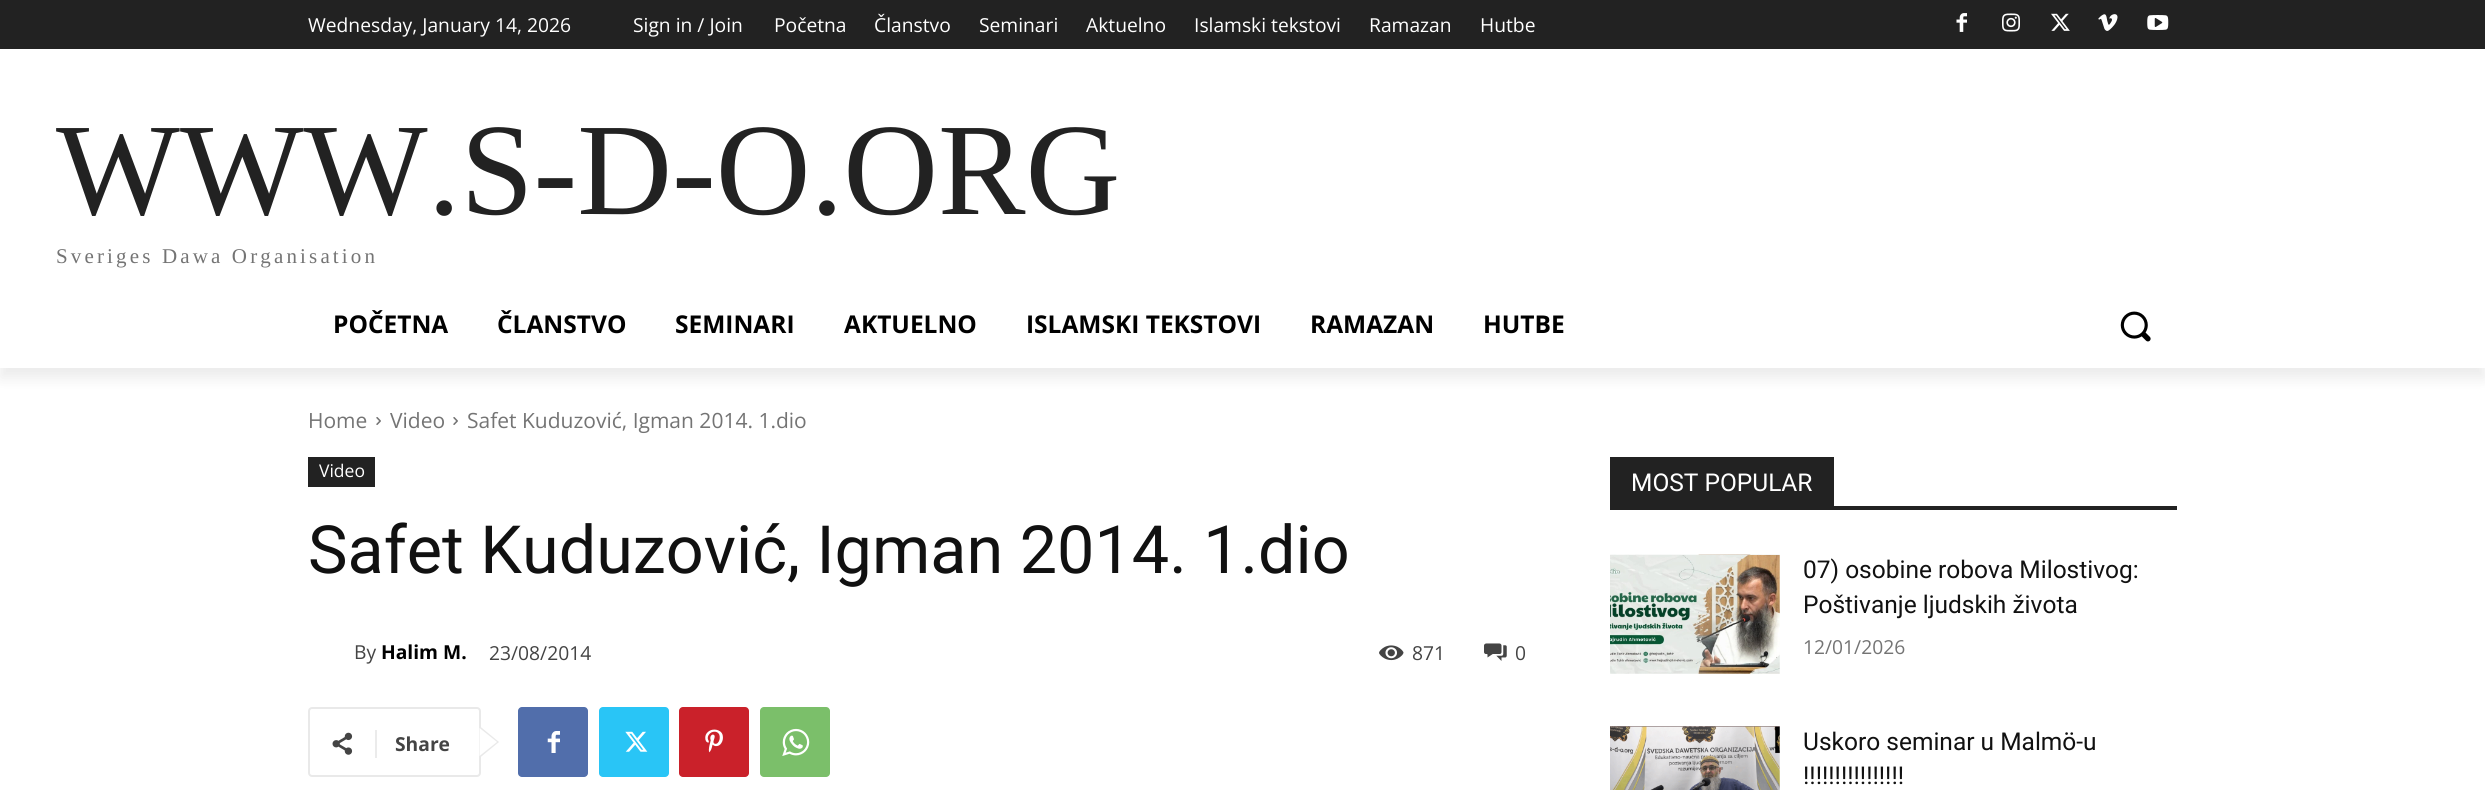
#include <cairo.h>
#include <math.h>
#include <stddef.h>

typedef struct { double x, y; const char *s; } line_t;

static void ink(cairo_t *ctx, unsigned color) {
    cairo_set_source_rgb(ctx, (color >> 16) / 255.0, (color >> 8 & 255) / 255.0, (color & 255) / 255.0);
}

static void write_spaced(cairo_t *ctx, double x, double y, const char *s, double letter, double word) {
    cairo_move_to(ctx, x, y);
    while (*s) {
        char ch[5] = {0};
        int n = 0;
        do ch[n++] = *s++; while ((*s & 0xC0) == 0x80);
        cairo_show_text(ctx, ch);
        cairo_rel_move_to(ctx, letter + word * (*ch == ' '), 0);
    }
}

static void round_path(cairo_t *ctx, double x, double y, double w, double h, double r) {
    cairo_new_sub_path(ctx);
    cairo_arc(ctx, x + w - r, y + h - r, r, 0, M_PI / 2);
    cairo_arc(ctx, x + r, y + h - r, r, M_PI / 2, M_PI);
    cairo_arc(ctx, x + r, y + r, r, M_PI, 1.5 * M_PI);
    cairo_arc(ctx, x + w - r, y + r, r, 1.5 * M_PI, 2 * M_PI);
    cairo_close_path(ctx);
}

static void blur_box(cairo_t *ctx, double x, double y, double w, double h, double r, double blur, double alpha) {
    cairo_push_group_with_content(ctx, CAIRO_CONTENT_ALPHA);
    cairo_set_operator(ctx, CAIRO_OPERATOR_SOURCE);
    for (int i = 15; i >= -15 && fmin(w, h) + blur * i / 3 > 0; i -= 2) {
        double e = blur * i / 6;
        cairo_set_source_rgba(ctx, 0, 0, 0, alpha * erfc((i - 1) / 8.5) / 2);
        round_path(ctx, x - e, y - e, w + 2 * e, h + 2 * e, fmax(0, fmin(r + e + blur * .6, fmin(w, h) / 2 + e)));
        cairo_fill(ctx);
    }
    cairo_pattern_t *soft = cairo_pop_group(ctx);
    cairo_mask(ctx, soft);
    cairo_pattern_destroy(soft);
}

static void paste(cairo_t *ctx, const char *path, double x, double y, double w, double h) {
    cairo_surface_t *image = cairo_image_surface_create_from_png(path);
    cairo_save(ctx);
    cairo_set_source_surface(ctx, image, x, y);
    cairo_rectangle(ctx, x, y, w, h);
    cairo_fill(ctx);
    cairo_restore(ctx);
    cairo_surface_destroy(image);
}

int main(void) {
    cairo_surface_t *surface = cairo_image_surface_create(CAIRO_FORMAT_RGB24, 2485, 790);
    cairo_t *ctx = cairo_create(surface);
    cairo_font_options_t *options = cairo_font_options_create();
    cairo_font_options_set_hint_metrics(options, CAIRO_HINT_METRICS_OFF);
    cairo_font_options_set_hint_style(options, CAIRO_HINT_STYLE_NONE);
    cairo_set_font_options(ctx, options);
    cairo_set_miter_limit(ctx, 4);
    ink(ctx, 0xFFFFFF);
    cairo_paint(ctx);
    ink(ctx, 0x222222);
    cairo_rectangle(ctx, 0, 0, 2485, 49);
    cairo_fill(ctx);
    paste(ctx, "media/1.png", 1956, 13, 11, 19);
    paste(ctx, "media/2.png", 2002, 13, 18, 19);
    paste(ctx, "media/3.png", 2051, 13, 19, 18);
    paste(ctx, "media/4.png", 2098, 14, 20, 17);
    paste(ctx, "media/5.png", 2147, 15, 22, 15);
    cairo_save(ctx);
    cairo_set_fill_rule(ctx, CAIRO_FILL_RULE_EVEN_ODD);
    cairo_new_path(ctx);
    cairo_move_to(ctx, 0, 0);
    cairo_line_to(ctx, 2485, 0);
    cairo_line_to(ctx, 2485, 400);
    cairo_line_to(ctx, 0, 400);
    cairo_close_path(ctx);
    cairo_move_to(ctx, 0, 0);
    cairo_line_to(ctx, 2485, 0);
    cairo_line_to(ctx, 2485, 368);
    cairo_line_to(ctx, 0, 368);
    cairo_close_path(ctx);
    cairo_clip(ctx);
    ink(ctx, 0x000000);
    blur_box(ctx, 0, 11, 2485, 367, 0, 7, 0.08);
    cairo_restore(ctx);
    cairo_select_font_face(ctx, "Open Sans", CAIRO_FONT_SLANT_NORMAL, CAIRO_FONT_WEIGHT_NORMAL);
    cairo_set_font_size(ctx, 19.25);
    ink(ctx, 0xFFFFFF);
    {
        static const line_t items[] = {
            {308, 32, "Wednesday, January 14, 2026"},
            {633, 32, "Sign in / Join"},
            {774, 32, "Početna"},
            {874, 32, "Članstvo"},
            {979, 32, "Seminari"},
            {1086, 32, "Aktuelno"},
            {1194, 32, "Islamski tekstovi"},
            {1369, 32, "Ramazan"},
            {1480, 32, "Hutbe"},
        };
        for (size_t i = 0; i < sizeof items / sizeof *items; i++) {
            cairo_move_to(ctx, items[i].x, items[i].y);
            cairo_show_text(ctx, items[i].s);
        }
    }
    cairo_select_font_face(ctx, "Liberation Serif", CAIRO_FONT_SLANT_NORMAL, CAIRO_FONT_WEIGHT_NORMAL);
    cairo_set_font_size(ctx, 131.25);
    ink(ctx, 0x222222);
    cairo_move_to(ctx, 56, 214);
    cairo_show_text(ctx, "WWW.S-D-O.ORG");
    cairo_set_font_size(ctx, 21);
    ink(ctx, 0x747474);
    write_spaced(ctx, 56, 263, "Sveriges Dawa Organisation", 3.15, 0);
    cairo_select_font_face(ctx, "Open Sans", CAIRO_FONT_SLANT_NORMAL, CAIRO_FONT_WEIGHT_BOLD);
    cairo_set_font_size(ctx, 24.5);
    ink(ctx, 0x000000);
    {
        static const line_t items[] = {
            {333, 333, "POČETNA"},
            {497, 333, "ČLANSTVO"},
            {675, 333, "SEMINARI"},
            {844, 333, "AKTUELNO"},
            {1026, 333, "ISLAMSKI TEKSTOVI"},
            {1310, 333, "RAMAZAN"},
            {1483, 333, "HUTBE"},
        };
        for (size_t i = 0; i < sizeof items / sizeof *items; i++) {
            cairo_move_to(ctx, items[i].x, items[i].y);
            cairo_show_text(ctx, items[i].s);
        }
    }
    paste(ctx, "media/6.png", 2120, 311, 31, 31);
    cairo_select_font_face(ctx, "Open Sans", CAIRO_FONT_SLANT_NORMAL, CAIRO_FONT_WEIGHT_NORMAL);
    cairo_set_font_size(ctx, 21);
    ink(ctx, 0x747474);
    cairo_move_to(ctx, 308, 428);
    cairo_show_text(ctx, "Home");
    paste(ctx, "media/7.png", 376, 417, 5, 8);
    cairo_move_to(ctx, 390, 428);
    cairo_show_text(ctx, "Video");
    paste(ctx, "media/7.png", 453, 417, 5, 8);
    cairo_move_to(ctx, 467, 428);
    cairo_show_text(ctx, "Safet Kuduzović, Igman 2014. 1.dio");
    ink(ctx, 0x222222);
    cairo_rectangle(ctx, 308, 457, 67, 30);
    cairo_fill(ctx);
    cairo_set_font_size(ctx, 17.5);
    ink(ctx, 0xFFFFFF);
    cairo_move_to(ctx, 319, 477);
    cairo_show_text(ctx, "Video");
    cairo_select_font_face(ctx, "Roboto", CAIRO_FONT_SLANT_NORMAL, CAIRO_FONT_WEIGHT_NORMAL);
    cairo_set_font_size(ctx, 66.5);
    ink(ctx, 0x111111);
    cairo_move_to(ctx, 308, 573);
    cairo_show_text(ctx, "Safet Kuduzović, Igman 2014. 1.dio");
    cairo_select_font_face(ctx, "Open Sans", CAIRO_FONT_SLANT_NORMAL, CAIRO_FONT_WEIGHT_NORMAL);
    cairo_set_font_size(ctx, 19.25);
    ink(ctx, 0x444444);
    cairo_move_to(ctx, 354, 659);
    cairo_show_text(ctx, "By");
    cairo_select_font_face(ctx, "Open Sans", CAIRO_FONT_SLANT_NORMAL, CAIRO_FONT_WEIGHT_BOLD);
    ink(ctx, 0x000000);
    cairo_move_to(ctx, 381, 659);
    cairo_show_text(ctx, "Halim M.");
    cairo_select_font_face(ctx, "Open Sans", CAIRO_FONT_SLANT_NORMAL, CAIRO_FONT_WEIGHT_NORMAL);
    ink(ctx, 0x444444);
    cairo_move_to(ctx, 489, 660);
    cairo_show_text(ctx, "23/08/2014");
    paste(ctx, "media/8.png", 1379, 645, 25, 16);
    cairo_move_to(ctx, 1412, 660);
    cairo_show_text(ctx, "871");
    paste(ctx, "media/9.png", 1484, 643, 23, 18);
    cairo_move_to(ctx, 1515, 660);
    cairo_show_text(ctx, "0");
    round_path(ctx, 309, 708, 171, 68, 3);
    ink(ctx, 0xE9E9E9);
    cairo_stroke(ctx);
    cairo_new_path(ctx);
    cairo_move_to(ctx, 479.5, 758);
    cairo_line_to(ctx, 479.5, 726);
    cairo_line_to(ctx, 499, 742);
    cairo_close_path(ctx);
    cairo_fill(ctx);
    paste(ctx, "media/10.png", 332, 732, 21, 23);
    ink(ctx, 0xEBEBEB);
    cairo_rectangle(ctx, 375, 730, 2, 28);
    cairo_fill(ctx);
    cairo_select_font_face(ctx, "Open Sans", CAIRO_FONT_SLANT_NORMAL, CAIRO_FONT_WEIGHT_BOLD);
    ink(ctx, 0x444444);
    cairo_move_to(ctx, 395, 751);
    cairo_show_text(ctx, "Share");
    ink(ctx, 0xFFFFFF);
    cairo_new_path(ctx);
    cairo_move_to(ctx, 479.5, 756);
    cairo_line_to(ctx, 479.5, 728);
    cairo_line_to(ctx, 497, 742);
    cairo_close_path(ctx);
    cairo_fill(ctx);
    ink(ctx, 0x516EAB);
    round_path(ctx, 518, 707, 70, 70, 4);
    cairo_fill(ctx);
    paste(ctx, "media/11.png", 547, 731, 13, 22);
    ink(ctx, 0x29C5F6);
    round_path(ctx, 599, 707, 70, 70, 4);
    cairo_fill(ctx);
    paste(ctx, "media/12.png", 625, 731, 23, 21);
    ink(ctx, 0xCA212A);
    round_path(ctx, 679, 707, 70, 70, 4);
    cairo_fill(ctx);
    paste(ctx, "media/13.png", 705, 729, 18, 24);
    ink(ctx, 0x7BBF6A);
    round_path(ctx, 760, 707, 70, 70, 4);
    cairo_fill(ctx);
    paste(ctx, "media/14.png", 782, 728, 28, 28);
    ink(ctx, 0x222222);
    cairo_rectangle(ctx, 1610, 506, 567, 4);
    cairo_fill(ctx);
    cairo_rectangle(ctx, 1610, 457, 224, 49);
    cairo_fill(ctx);
    cairo_select_font_face(ctx, "Roboto", CAIRO_FONT_SLANT_NORMAL, CAIRO_FONT_WEIGHT_NORMAL);
    cairo_set_font_size(ctx, 24.5);
    ink(ctx, 0xFFFFFF);
    cairo_move_to(ctx, 1631, 491);
    cairo_show_text(ctx, "MOST POPULAR");
    paste(ctx, "media/15.png", 1610, 554, 170, 120);
    ink(ctx, 0x111111);
    cairo_move_to(ctx, 1803, 578);
    cairo_show_text(ctx, "07) osobine robova Milostivog:");
    cairo_move_to(ctx, 1803, 613);
    cairo_show_text(ctx, "Poštivanje ljudskih života");
    cairo_select_font_face(ctx, "Open Sans", CAIRO_FONT_SLANT_NORMAL, CAIRO_FONT_WEIGHT_NORMAL);
    cairo_set_font_size(ctx, 19.25);
    ink(ctx, 0x747474);
    cairo_move_to(ctx, 1803, 654);
    cairo_show_text(ctx, "12/01/2026");
    paste(ctx, "media/16.png", 1610, 726, 170, 64);
    cairo_select_font_face(ctx, "Roboto", CAIRO_FONT_SLANT_NORMAL, CAIRO_FONT_WEIGHT_NORMAL);
    cairo_set_font_size(ctx, 24.5);
    ink(ctx, 0x111111);
    cairo_move_to(ctx, 1803, 750);
    cairo_show_text(ctx, "Uskoro seminar u Malmö-u");
    cairo_move_to(ctx, 1803, 784);
    cairo_show_text(ctx, "!!!!!!!!!!!!!!!!");
    cairo_surface_write_to_png(surface, "image.png");
    cairo_font_options_destroy(options);
    cairo_destroy(ctx);
    cairo_surface_destroy(surface);
    return 0;
}
